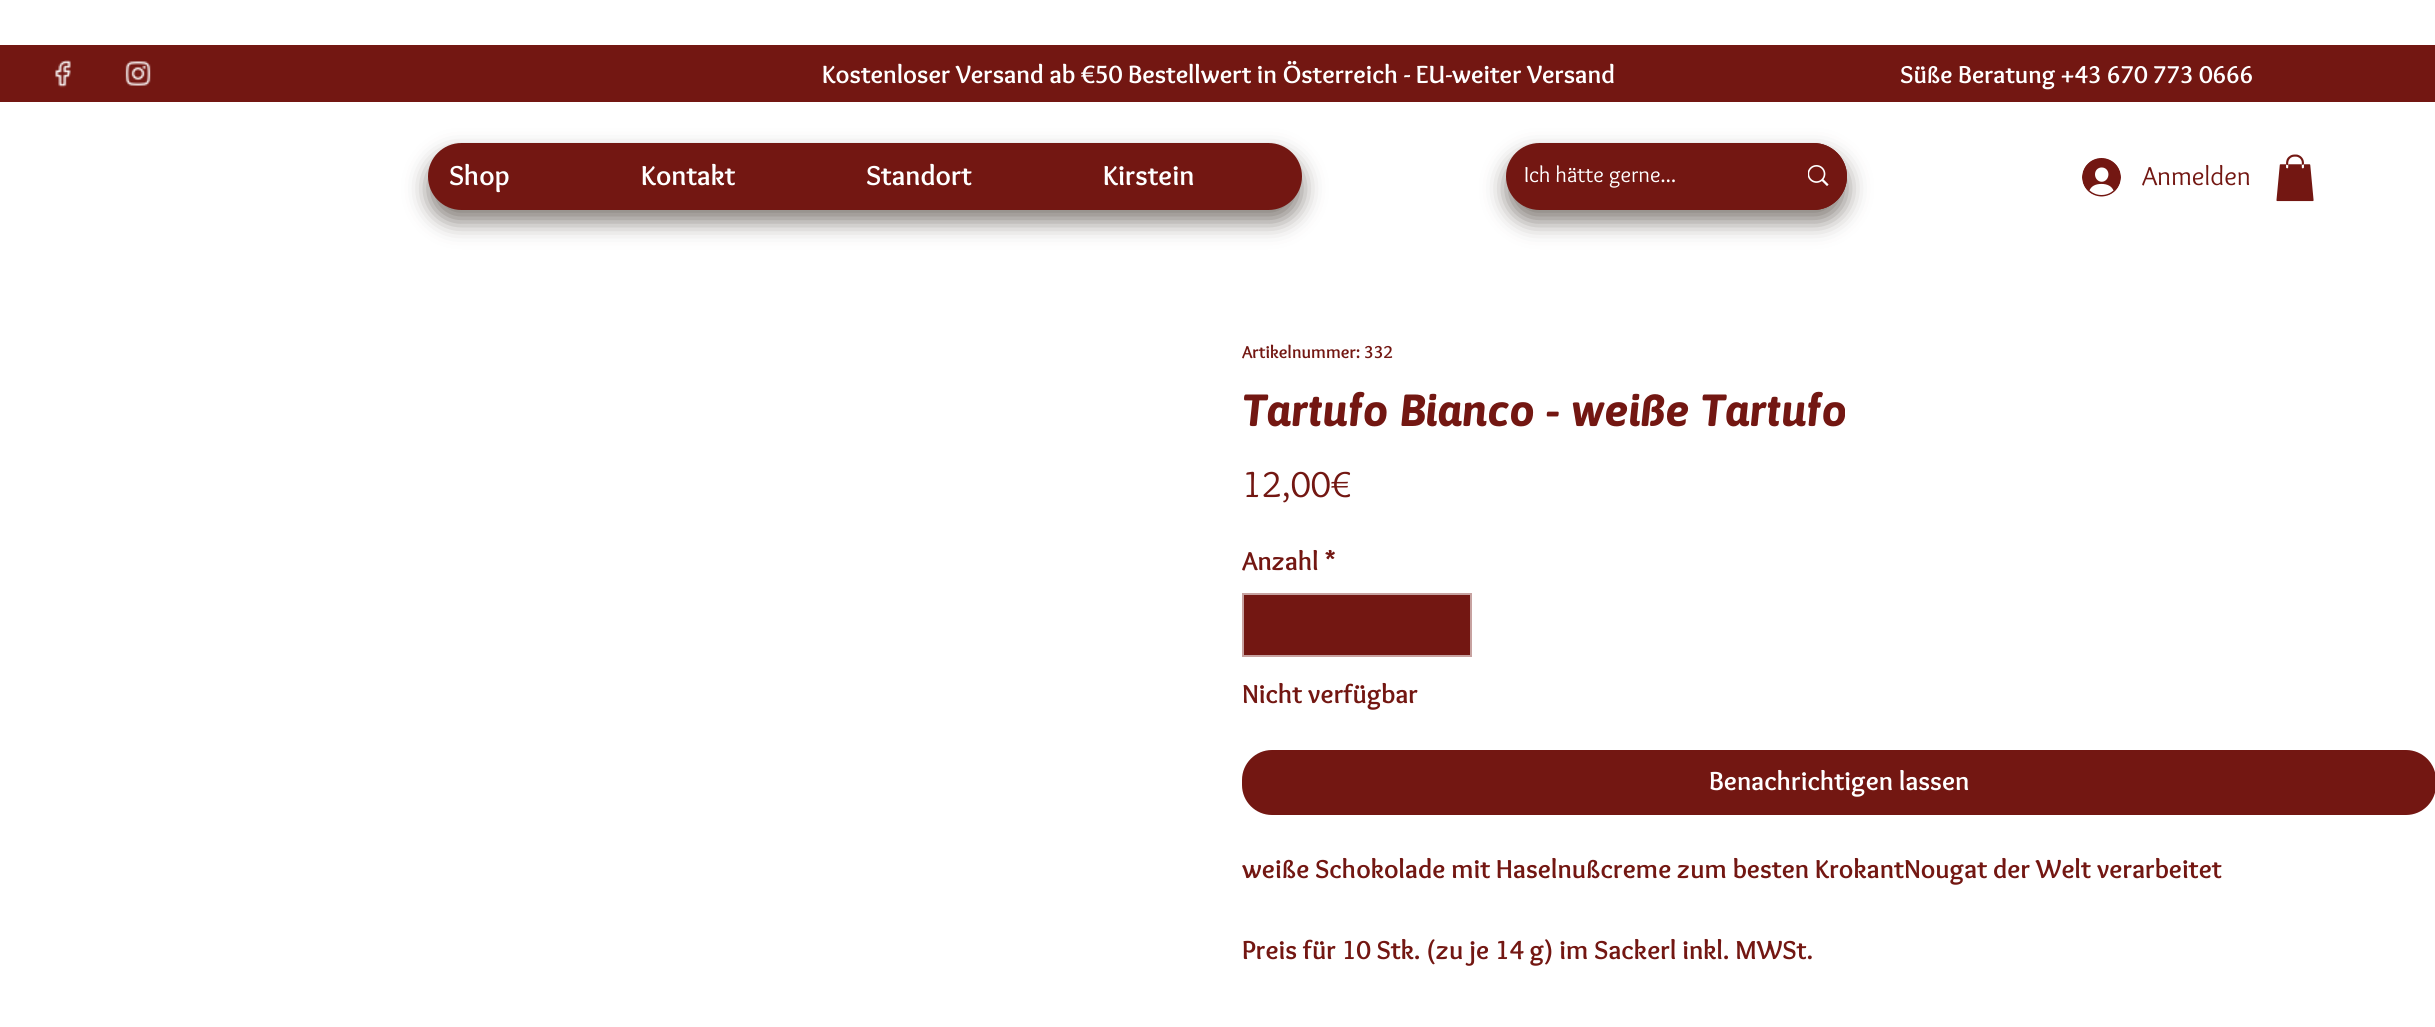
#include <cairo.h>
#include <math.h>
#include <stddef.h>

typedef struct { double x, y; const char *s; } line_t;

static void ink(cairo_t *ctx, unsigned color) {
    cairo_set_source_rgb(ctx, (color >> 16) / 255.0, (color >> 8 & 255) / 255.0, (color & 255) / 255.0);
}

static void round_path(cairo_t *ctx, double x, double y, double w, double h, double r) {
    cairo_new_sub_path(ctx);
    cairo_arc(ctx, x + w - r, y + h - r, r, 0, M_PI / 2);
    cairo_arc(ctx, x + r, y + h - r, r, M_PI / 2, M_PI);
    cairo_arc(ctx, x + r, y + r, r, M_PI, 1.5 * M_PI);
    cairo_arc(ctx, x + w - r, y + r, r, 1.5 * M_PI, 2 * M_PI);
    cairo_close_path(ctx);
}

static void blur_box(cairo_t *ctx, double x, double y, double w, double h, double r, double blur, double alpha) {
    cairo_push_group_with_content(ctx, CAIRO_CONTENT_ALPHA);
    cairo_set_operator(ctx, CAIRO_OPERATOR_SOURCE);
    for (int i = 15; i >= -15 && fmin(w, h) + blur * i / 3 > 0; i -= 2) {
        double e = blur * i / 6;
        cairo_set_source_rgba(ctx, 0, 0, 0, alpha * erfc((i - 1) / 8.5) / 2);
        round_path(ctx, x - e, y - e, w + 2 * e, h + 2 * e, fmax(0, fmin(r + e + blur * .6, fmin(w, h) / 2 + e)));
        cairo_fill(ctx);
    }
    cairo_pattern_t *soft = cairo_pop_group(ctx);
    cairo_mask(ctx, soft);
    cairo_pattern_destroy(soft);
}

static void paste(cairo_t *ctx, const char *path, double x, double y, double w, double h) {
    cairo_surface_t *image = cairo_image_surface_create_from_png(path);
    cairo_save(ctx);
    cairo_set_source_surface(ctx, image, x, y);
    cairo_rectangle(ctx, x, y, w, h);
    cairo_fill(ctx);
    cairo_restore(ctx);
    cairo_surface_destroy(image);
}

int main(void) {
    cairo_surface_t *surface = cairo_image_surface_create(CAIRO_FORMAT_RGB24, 2435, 1027);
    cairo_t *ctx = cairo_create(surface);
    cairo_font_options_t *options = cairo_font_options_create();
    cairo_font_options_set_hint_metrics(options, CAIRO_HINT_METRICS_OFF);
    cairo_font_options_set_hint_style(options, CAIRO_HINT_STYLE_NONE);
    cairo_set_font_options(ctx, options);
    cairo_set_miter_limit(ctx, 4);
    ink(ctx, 0xFFFFFF);
    cairo_paint(ctx);
    ink(ctx, 0x731712);
    cairo_rectangle(ctx, 0, 45, 2435, 57);
    cairo_fill(ctx);
    paste(ctx, "media/1.png", 55, 60, 16, 28);
    paste(ctx, "media/2.png", 125, 61, 26, 25);
    cairo_select_font_face(ctx, "Overlock", CAIRO_FONT_SLANT_NORMAL, CAIRO_FONT_WEIGHT_BOLD);
    cairo_set_font_size(ctx, 25.9);
    ink(ctx, 0xFFFFFF);
    cairo_move_to(ctx, 822, 83);
    cairo_show_text(ctx, "Kostenloser Versand ab €50 Bestellwert in Österreich - EU-weiter Versand");
    cairo_set_font_size(ctx, 25.3);
    cairo_move_to(ctx, 1900, 83);
    cairo_show_text(ctx, "Süße Beratung +43 670 773 0666");
    ink(ctx, 0x615952);
    blur_box(ctx, 428, 155, 874, 67, 33.5, 11, 0.77);
    ink(ctx, 0x731712);
    round_path(ctx, 428, 143, 874, 67, 33.5);
    cairo_fill(ctx);
    cairo_set_font_size(ctx, 28.5);
    ink(ctx, 0xFFFFFF);
    {
        static const line_t items[] = {
            {449, 185, "Shop"},
            {641, 185, "Kontakt"},
            {866, 185, "Standort"},
            {1103, 185, "Kirstein"},
        };
        for (size_t i = 0; i < sizeof items / sizeof *items; i++) {
            cairo_move_to(ctx, items[i].x, items[i].y);
            cairo_show_text(ctx, items[i].s);
        }
    }
    ink(ctx, 0x615952);
    blur_box(ctx, 1506, 155, 341, 67, 33.5, 11, 0.77);
    ink(ctx, 0x731712);
    round_path(ctx, 1506, 143, 341, 67, 33.5);
    cairo_fill(ctx);
    cairo_select_font_face(ctx, "Overlock", CAIRO_FONT_SLANT_NORMAL, CAIRO_FONT_WEIGHT_NORMAL);
    cairo_set_font_size(ctx, 22.5);
    ink(ctx, 0xFFFFFF);
    cairo_move_to(ctx, 1524, 182);
    cairo_show_text(ctx, "Ich hätte gerne...");
    ink(ctx, 0x731712);
    cairo_new_path(ctx);
    cairo_move_to(ctx, 1790, 143);
    cairo_line_to(ctx, 1813.5, 143);
    cairo_curve_to(ctx, 1832, 143, 1847, 158, 1847, 176.5);
    cairo_curve_to(ctx, 1847, 195, 1832, 210, 1813.5, 210);
    cairo_line_to(ctx, 1790, 210);
    cairo_close_path(ctx);
    cairo_fill(ctx);
    paste(ctx, "media/3.png", 1808, 165, 21, 21);
    paste(ctx, "media/4.png", 2082, 158, 39, 39);
    cairo_set_font_size(ctx, 27);
    cairo_move_to(ctx, 2142, 185);
    cairo_show_text(ctx, "Anmelden");
    paste(ctx, "media/5.png", 2276, 154, 38, 48);
    cairo_select_font_face(ctx, "Overlock", CAIRO_FONT_SLANT_NORMAL, CAIRO_FONT_WEIGHT_BOLD);
    cairo_set_font_size(ctx, 18);
    cairo_move_to(ctx, 1242, 358);
    cairo_show_text(ctx, "Artikelnummer: 332");
    cairo_select_font_face(ctx, "Asap", CAIRO_FONT_SLANT_ITALIC, CAIRO_FONT_WEIGHT_BOLD);
    cairo_set_font_size(ctx, 45);
    cairo_move_to(ctx, 1242, 426);
    cairo_show_text(ctx, "Tartufo Bianco - weiße Tartufo");
    cairo_select_font_face(ctx, "Overlock", CAIRO_FONT_SLANT_NORMAL, CAIRO_FONT_WEIGHT_NORMAL);
    cairo_set_font_size(ctx, 37.5);
    cairo_move_to(ctx, 1242, 497);
    cairo_show_text(ctx, "12,00€");
    cairo_select_font_face(ctx, "Overlock", CAIRO_FONT_SLANT_NORMAL, CAIRO_FONT_WEIGHT_BOLD);
    cairo_set_font_size(ctx, 27);
    cairo_move_to(ctx, 1242, 570);
    cairo_show_text(ctx, "Anzahl *");
    cairo_rectangle(ctx, 1243, 594, 228, 62);
    cairo_fill_preserve(ctx);
    ink(ctx, 0xC7A2A0);
    cairo_stroke(ctx);
    ink(ctx, 0x731712);
    cairo_move_to(ctx, 1242, 703);
    cairo_show_text(ctx, "Nicht verfügbar");
    round_path(ctx, 1242, 750, 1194, 65, 30);
    cairo_fill(ctx);
    ink(ctx, 0xFFFFFF);
    cairo_move_to(ctx, 1709, 790);
    cairo_show_text(ctx, "Benachrichtigen lassen");
    ink(ctx, 0x731712);
    cairo_move_to(ctx, 1242, 878);
    cairo_show_text(ctx, "weiße Schokolade mit Haselnußcreme zum besten KrokantNougat der Welt verarbeitet");
    cairo_move_to(ctx, 1242, 959);
    cairo_show_text(ctx, "Preis für 10 Stk. (zu je 14 g) im Sackerl inkl. MWSt.");
    cairo_surface_write_to_png(surface, "image.png");
    cairo_font_options_destroy(options);
    cairo_destroy(ctx);
    cairo_surface_destroy(surface);
    return 0;
}
